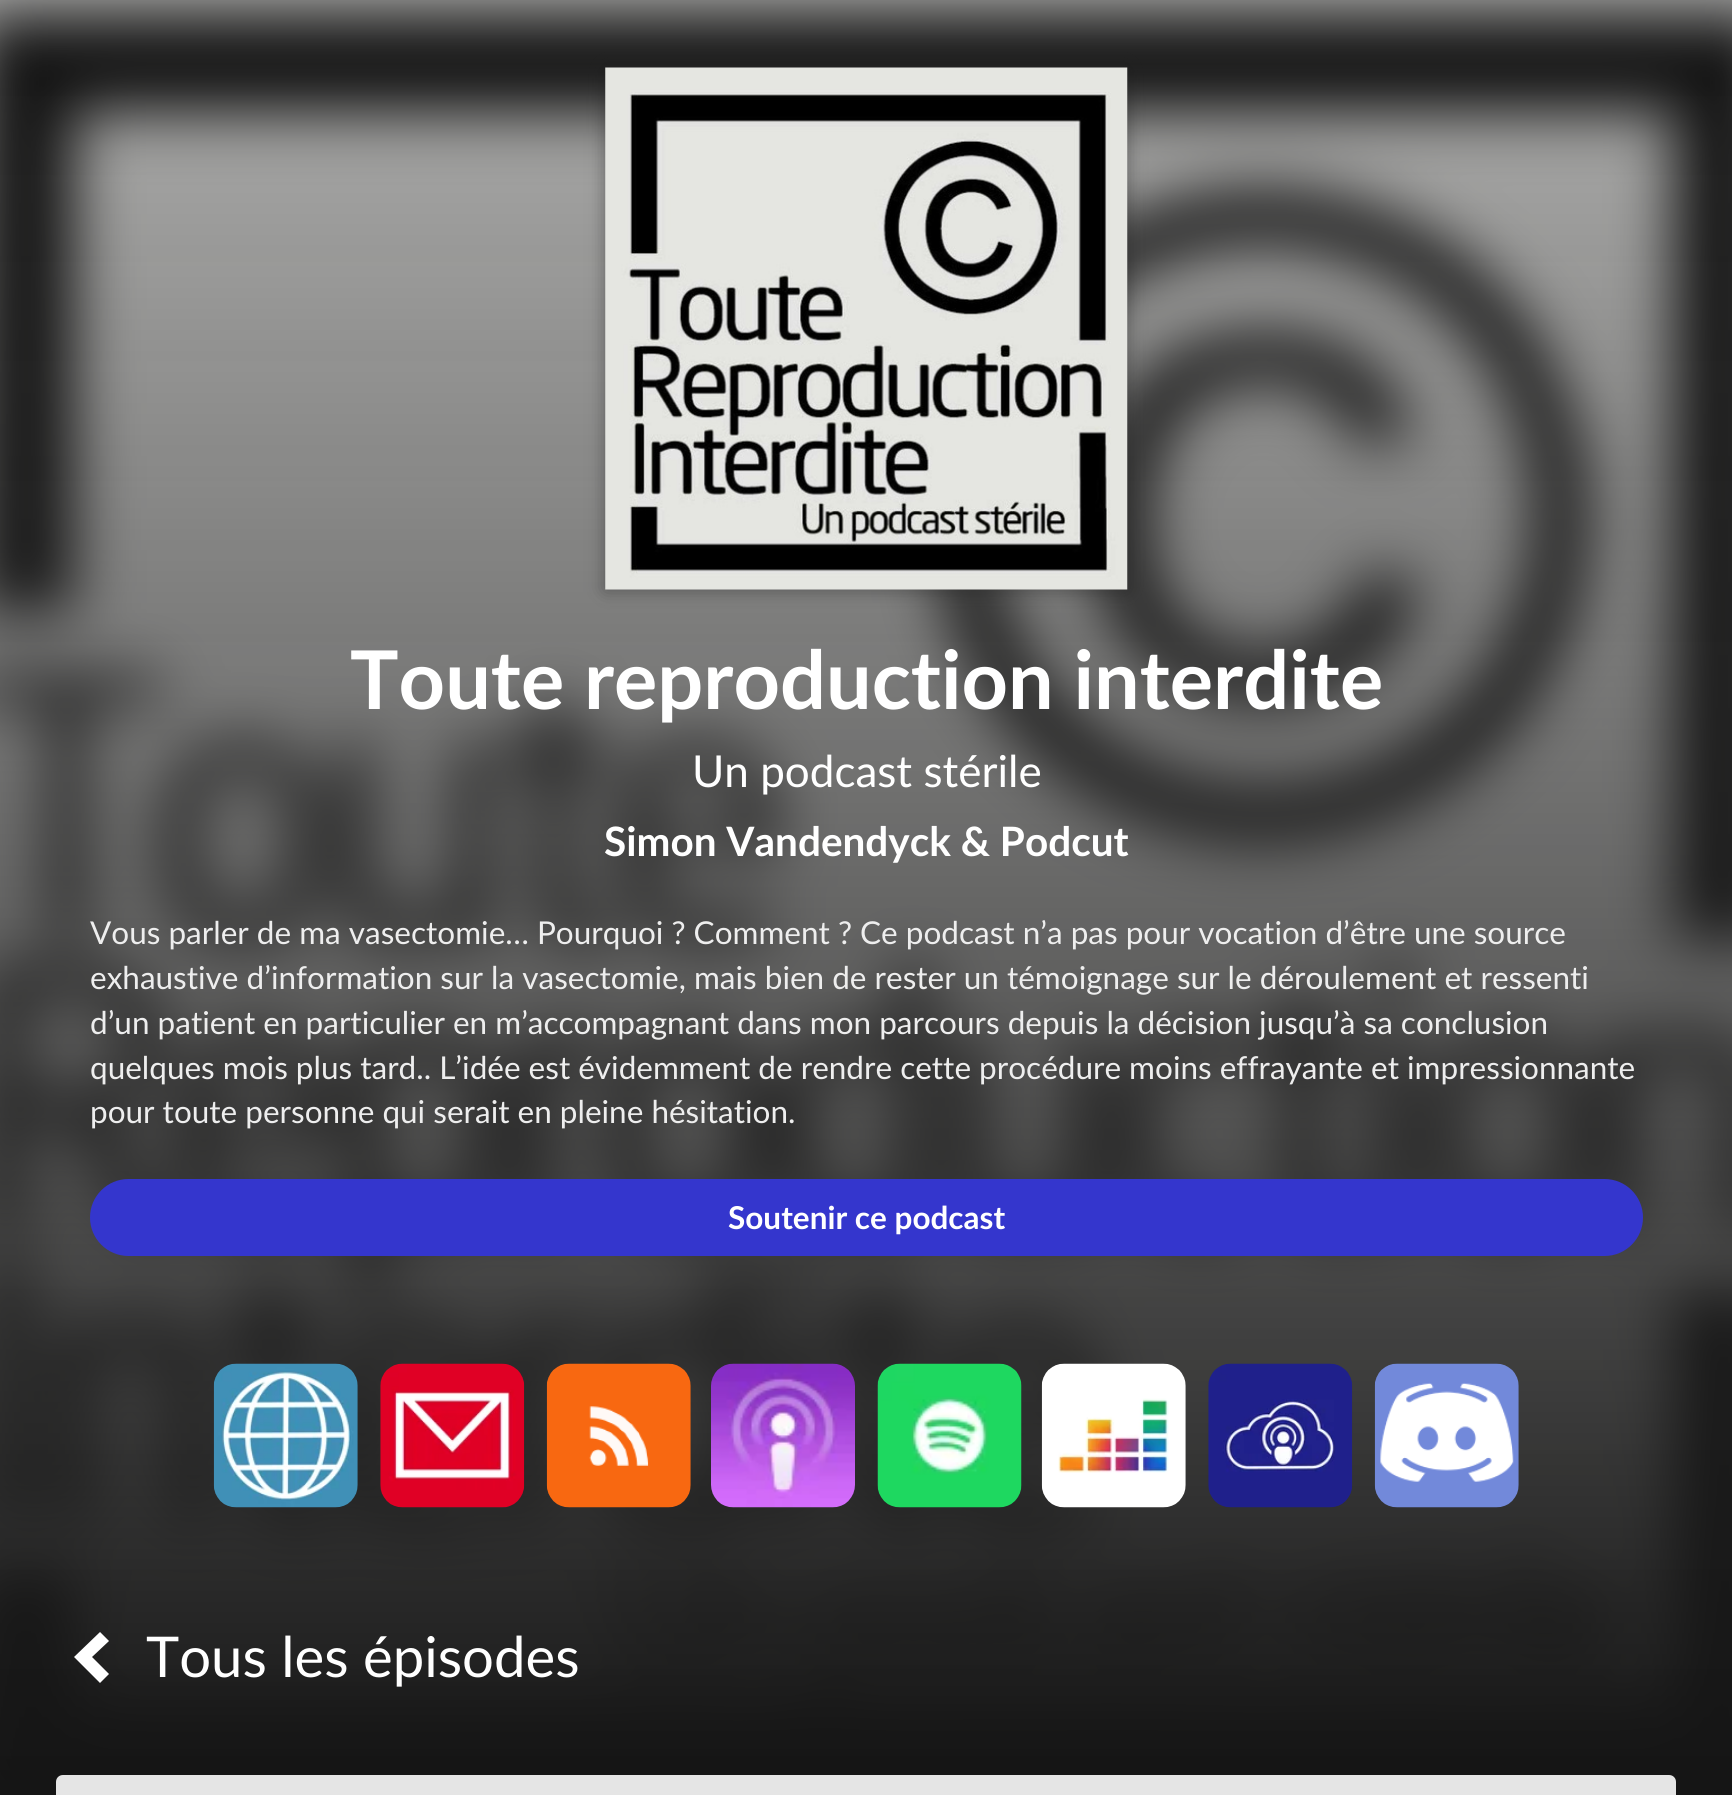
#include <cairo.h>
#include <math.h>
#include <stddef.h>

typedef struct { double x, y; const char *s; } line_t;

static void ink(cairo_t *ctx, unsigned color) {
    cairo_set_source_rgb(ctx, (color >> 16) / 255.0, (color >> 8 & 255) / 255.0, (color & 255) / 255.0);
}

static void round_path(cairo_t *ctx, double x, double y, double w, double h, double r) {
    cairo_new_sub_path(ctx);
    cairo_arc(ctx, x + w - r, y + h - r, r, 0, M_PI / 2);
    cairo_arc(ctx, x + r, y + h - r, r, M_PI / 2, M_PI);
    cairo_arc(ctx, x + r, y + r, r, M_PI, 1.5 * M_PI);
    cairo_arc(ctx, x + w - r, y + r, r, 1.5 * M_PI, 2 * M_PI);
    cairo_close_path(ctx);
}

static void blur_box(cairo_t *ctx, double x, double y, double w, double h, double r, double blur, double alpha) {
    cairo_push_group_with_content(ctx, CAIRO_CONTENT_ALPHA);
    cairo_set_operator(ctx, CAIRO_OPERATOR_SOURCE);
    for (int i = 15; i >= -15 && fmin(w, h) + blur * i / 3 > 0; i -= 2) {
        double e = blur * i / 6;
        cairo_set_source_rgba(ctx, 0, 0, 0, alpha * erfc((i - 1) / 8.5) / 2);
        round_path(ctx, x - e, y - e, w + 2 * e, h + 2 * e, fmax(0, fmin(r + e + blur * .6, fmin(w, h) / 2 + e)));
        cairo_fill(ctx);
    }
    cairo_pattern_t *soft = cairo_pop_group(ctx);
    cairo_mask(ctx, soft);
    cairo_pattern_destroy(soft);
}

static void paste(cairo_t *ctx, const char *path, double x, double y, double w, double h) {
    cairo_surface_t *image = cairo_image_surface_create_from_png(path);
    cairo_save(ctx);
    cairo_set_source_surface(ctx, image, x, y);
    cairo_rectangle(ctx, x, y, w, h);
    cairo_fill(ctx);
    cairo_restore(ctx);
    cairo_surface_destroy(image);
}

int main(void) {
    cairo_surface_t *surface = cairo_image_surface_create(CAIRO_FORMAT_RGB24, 1732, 1795);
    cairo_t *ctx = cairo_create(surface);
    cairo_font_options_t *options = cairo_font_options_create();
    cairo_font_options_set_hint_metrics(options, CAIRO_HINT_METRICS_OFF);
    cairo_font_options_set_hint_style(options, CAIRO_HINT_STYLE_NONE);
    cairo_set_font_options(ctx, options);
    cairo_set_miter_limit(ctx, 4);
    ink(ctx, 0xFFFFFF);
    cairo_paint(ctx);
    paste(ctx, "media/1.png", 0, 0, 1732, 1795);
    ink(ctx, 0x1E1E1E);
    blur_box(ctx, 605, 68, 522, 522, 0, 9, 0.45);
    paste(ctx, "media/2.png", 605, 67, 523, 523);
    cairo_select_font_face(ctx, "Lato", CAIRO_FONT_SLANT_NORMAL, CAIRO_FONT_WEIGHT_BOLD);
    cairo_set_font_size(ctx, 81);
    ink(ctx, 0xFFFFFF);
    cairo_move_to(ctx, 350, 709);
    cairo_show_text(ctx, "Toute reproduction interdite");
    cairo_select_font_face(ctx, "Lato", CAIRO_FONT_SLANT_NORMAL, CAIRO_FONT_WEIGHT_NORMAL);
    cairo_set_font_size(ctx, 44);
    cairo_move_to(ctx, 692, 787);
    cairo_show_text(ctx, "Un podcast stérile");
    cairo_select_font_face(ctx, "Lato", CAIRO_FONT_SLANT_NORMAL, CAIRO_FONT_WEIGHT_BOLD);
    cairo_set_font_size(ctx, 40.5);
    cairo_move_to(ctx, 604, 856);
    cairo_show_text(ctx, "Simon Vandendyck & Podcut");
    cairo_select_font_face(ctx, "Lato", CAIRO_FONT_SLANT_NORMAL, CAIRO_FONT_WEIGHT_NORMAL);
    cairo_set_font_size(ctx, 31.5);
    ink(ctx, 0xEEEEEE);
    {
        static const line_t items[] = {
            {90, 944, "Vous parler de ma vasectomie… Pourquoi ? Comment ? Ce podcast n’a pas pour vocation d’être une source"},
            {90, 989, "exhaustive d’information sur la vasectomie, mais bien de rester un témoignage sur le déroulement et ressenti"},
            {90, 1034, "d’un patient en particulier en m’accompagnant dans mon parcours depuis la décision jusqu’à sa conclusion"},
            {90, 1079, "quelques mois plus tard.. L’idée est évidemment de rendre cette procédure moins effrayante et impressionnante"},
            {90, 1123, "pour toute personne qui serait en pleine hésitation."},
        };
        for (size_t i = 0; i < sizeof items / sizeof *items; i++) {
            cairo_move_to(ctx, items[i].x, items[i].y);
            cairo_show_text(ctx, items[i].s);
        }
    }
    ink(ctx, 0x3436CD);
    round_path(ctx, 90, 1179, 1553, 77, 38.5);
    cairo_fill(ctx);
    cairo_select_font_face(ctx, "Lato", CAIRO_FONT_SLANT_NORMAL, CAIRO_FONT_WEIGHT_BOLD);
    ink(ctx, 0xFFFFFF);
    cairo_move_to(ctx, 728, 1229);
    cairo_show_text(ctx, "Soutenir ce podcast");
    paste(ctx, "media/3.png", 213, 1363, 145, 145);
    paste(ctx, "media/4.png", 380, 1363, 145, 145);
    paste(ctx, "media/5.png", 546, 1363, 145, 145);
    paste(ctx, "media/6.png", 711, 1363, 144, 145);
    paste(ctx, "media/7.png", 877, 1363, 145, 145);
    paste(ctx, "media/8.png", 1041, 1363, 145, 145);
    paste(ctx, "media/9.png", 1208, 1363, 145, 145);
    paste(ctx, "media/10.png", 1374, 1363, 145, 145);
    cairo_new_path(ctx);
    cairo_move_to(ctx, 109, 1641);
    cairo_line_to(ctx, 92, 1657);
    cairo_line_to(ctx, 109, 1674);
    cairo_line_to(ctx, 100, 1683);
    cairo_line_to(ctx, 74, 1657);
    cairo_line_to(ctx, 100, 1632);
    cairo_close_path(ctx);
    cairo_fill(ctx);
    cairo_select_font_face(ctx, "Lato", CAIRO_FONT_SLANT_NORMAL, CAIRO_FONT_WEIGHT_NORMAL);
    cairo_set_font_size(ctx, 56.25);
    cairo_move_to(ctx, 146, 1677);
    cairo_show_text(ctx, "Tous les épisodes");
    ink(ctx, 0xE5E5E5);
    cairo_new_path(ctx);
    cairo_move_to(ctx, 63, 1775);
    cairo_line_to(ctx, 1669, 1775);
    cairo_curve_to(ctx, 1673, 1775, 1676, 1778, 1676, 1782);
    cairo_line_to(ctx, 1676, 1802);
    cairo_line_to(ctx, 56, 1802);
    cairo_line_to(ctx, 56, 1782);
    cairo_curve_to(ctx, 56, 1778, 59, 1775, 63, 1775);
    cairo_close_path(ctx);
    cairo_fill(ctx);
    cairo_surface_write_to_png(surface, "image.png");
    cairo_font_options_destroy(options);
    cairo_destroy(ctx);
    cairo_surface_destroy(surface);
    return 0;
}
